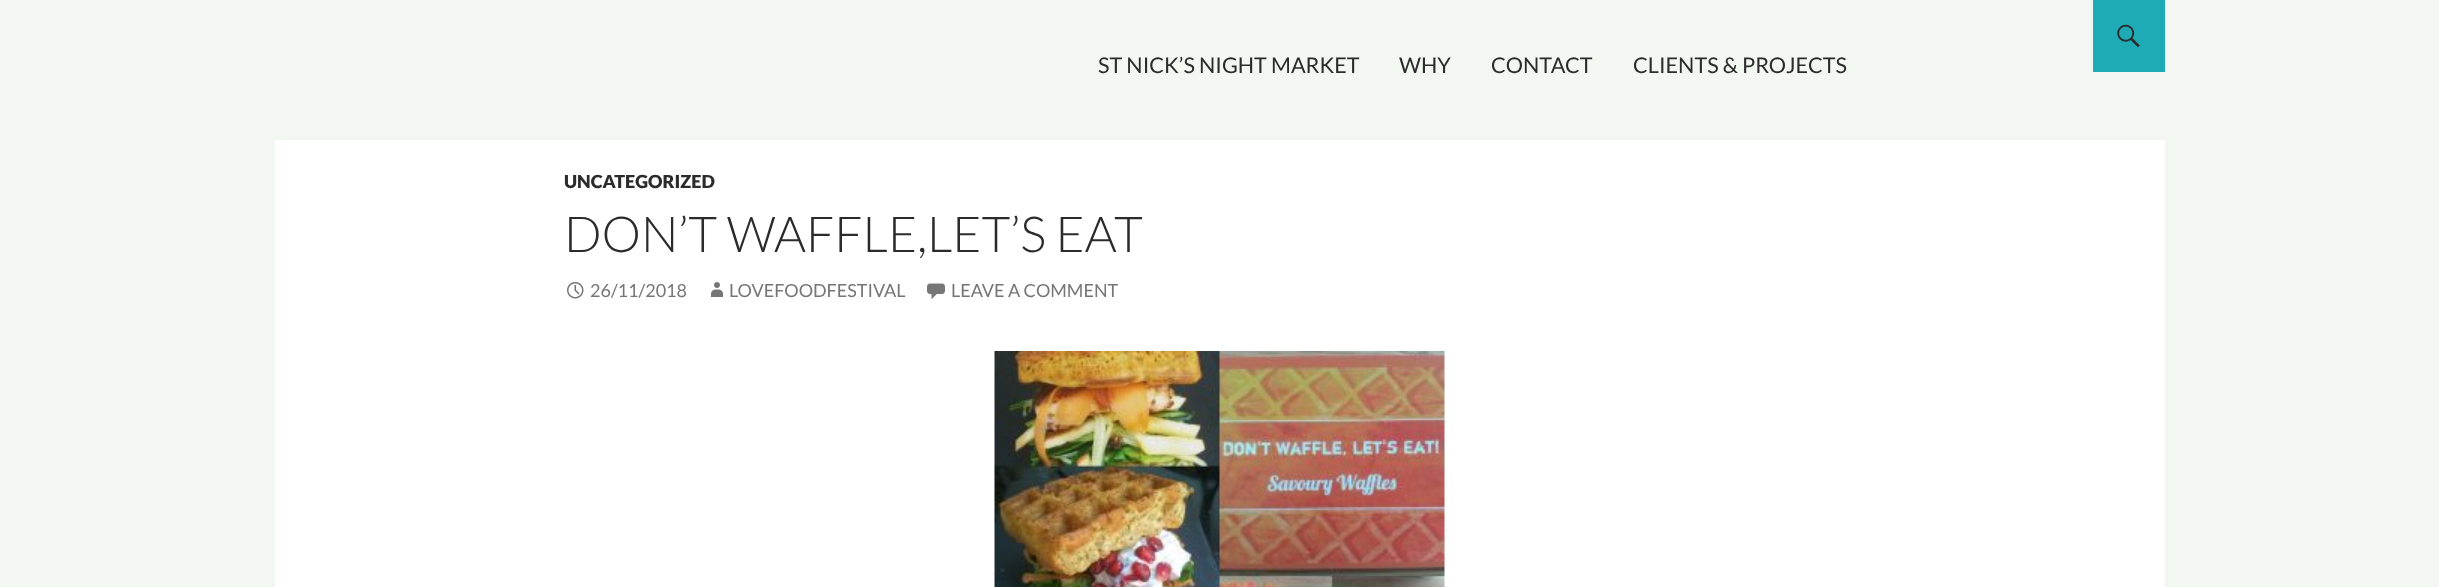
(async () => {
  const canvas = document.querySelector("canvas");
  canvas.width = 2439;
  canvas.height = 587;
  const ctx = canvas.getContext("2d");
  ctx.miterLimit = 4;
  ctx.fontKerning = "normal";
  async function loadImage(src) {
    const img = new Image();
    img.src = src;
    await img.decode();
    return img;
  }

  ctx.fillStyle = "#f2f7f2";
  ctx.fillRect(0, 0, 2439, 587);
  ctx.fillStyle = "#ffffff";
  ctx.fillRect(275, 140, 1890, 447);
  ctx.fillStyle = "#1eabb5";
  ctx.fillRect(2093, 0, 72, 72);
  ctx.drawImage(await loadImage("img/1.png"), 2117, 24, 23, 24);
  ctx.drawImage(await loadImage("img/2.png"), 567, 282, 17, 17);
  ctx.drawImage(await loadImage("img/3.png"), 711, 282, 12, 15);
  ctx.drawImage(await loadImage("img/4.png"), 927, 283, 18, 17);
  ctx.drawImage(await loadImage("img/5.png"), 994, 351, 451, 236);
  ctx.font = "21.6px Lato";
  ctx.fillStyle = "#2b2b2b";
  for (const [text, x, y] of [
    ["ST NICK’S NIGHT MARKET", 1098, 73],
    ["WHY", 1399, 73],
    ["CONTACT", 1491, 73],
    ["CLIENTS & PROJECTS", 1633, 73],
  ]) {
    ctx.fillText(text, x, y);
  }
  ctx.font = "900 18px Lato";
  ctx.fillText("UNCATEGORIZED", 564, 188);
  ctx.font = "300 49.5px Lato";
  ctx.fillText("DON’T WAFFLE,LET’S EAT", 564, 252);
  ctx.font = "18px Lato";
  ctx.fillStyle = "#767676";
  for (const [text, x, y] of [
    ["26/11/2018", 590, 297],
    ["LOVEFOODFESTIVAL", 729, 297],
    ["LEAVE A COMMENT", 951, 297],
  ]) {
    ctx.fillText(text, x, y);
  }
})();
